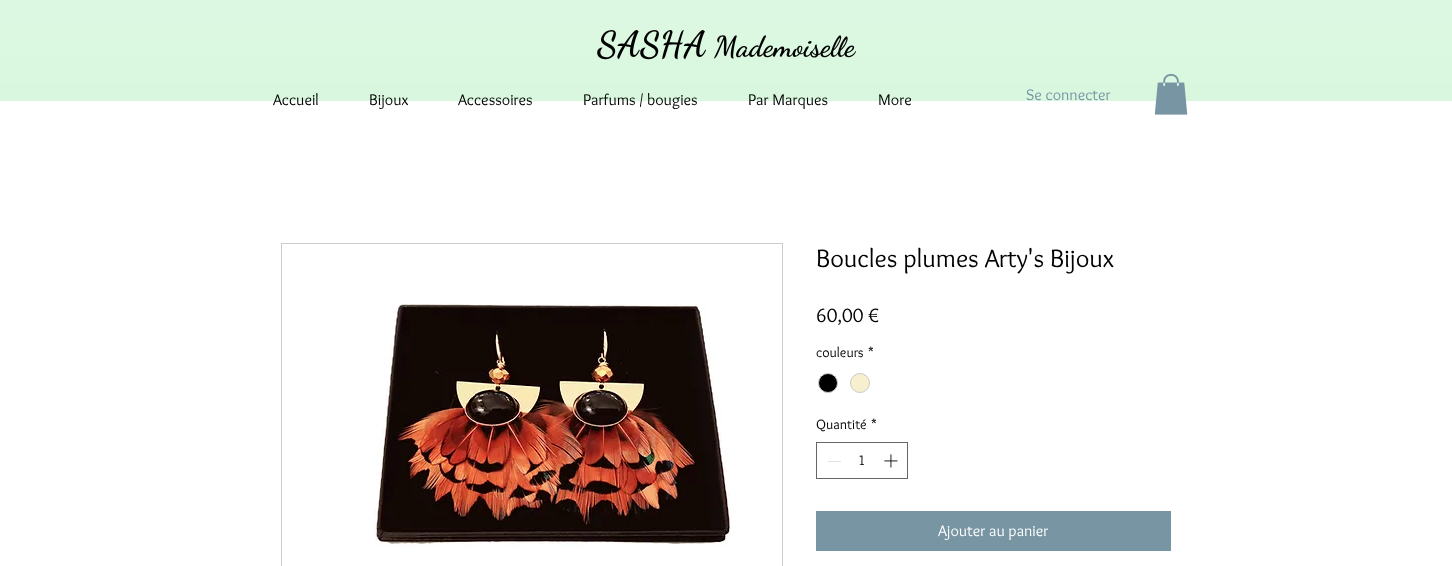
(async () => {
  const canvas = document.querySelector("canvas");
  canvas.width = 1452;
  canvas.height = 566;
  const ctx = canvas.getContext("2d");
  ctx.miterLimit = 4;
  ctx.fontKerning = "normal";
  async function loadImage(src) {
    const img = new Image();
    img.src = src;
    await img.decode();
    return img;
  }

  ctx.fillStyle = "#ffffff";
  ctx.fillRect(0, 0, 1452, 566);
  ctx.fillStyle = "#d2f6d9";
  ctx.fillRect(0, 0, 1452, 101);
  ctx.drawImage(await loadImage("img/1.png"), 0, 0, 1452, 101);
  ctx.drawImage(await loadImage("img/2.png"), 1154, 74, 34, 41);
  ctx.strokeStyle = "#cccccc";
  ctx.strokeRect(281.5, 243.5, 501, 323);
  ctx.drawImage(await loadImage("img/3.png"), 374, 302, 356, 245);
  ctx.fillStyle = "#000000";
  ctx.beginPath();
  ctx.arc(828, 383, 9.5, 0, Math.PI * 2);
  ctx.fill();
  ctx.strokeStyle = "#c9c9c9";
  ctx.stroke();
  ctx.fillStyle = "#f7f0cf";
  ctx.beginPath();
  ctx.arc(860, 383, 9.5, 0, Math.PI * 2);
  ctx.fill();
  ctx.stroke();
  ctx.strokeStyle = "#666666";
  ctx.strokeRect(816.5, 442.5, 91, 36);
  ctx.fillStyle = "#e3e3e3";
  ctx.fillRect(828, 461, 13, 1);
  ctx.drawImage(await loadImage("img/4.png"), 884, 454, 14, 14);
  ctx.fillStyle = "#7795a3";
  ctx.fillRect(816, 511, 355, 40);
  ctx.font = "bold 36px Dancing Script";
  ctx.fillStyle = "#000000";
  ctx.fillText("SASHA", 597, 56);
  ctx.font = "bold 29px Dancing Script";
  ctx.fillText("Mademoiselle", 714, 56);
  ctx.font = "16px Overlock";
  for (const [text, x, y] of [
    ["Accueil", 273, 105],
    ["Bijoux", 369, 105],
    ["Accessoires", 458, 105],
    ["Parfums / bougies", 583, 105],
    ["Par Marques", 748, 105],
    ["More", 878, 105],
  ]) {
    ctx.fillText(text, x, y);
  }
  ctx.fillStyle = "#7795a3";
  ctx.fillText("Se connecter", 1026, 100);
  ctx.font = "26px Overlock";
  ctx.fillStyle = "#000000";
  ctx.fillText("Boucles plumes Arty's Bijoux", 816, 267);
  ctx.font = "20px Overlock";
  ctx.fillText("60,00 €", 816, 322);
  ctx.font = "14px Overlock";
  for (const [text, x, y] of [
    ["couleurs", 816, 357],
    ["*", 868, 357],
    ["Quantité", 816, 429],
    ["*", 871, 429],
    ["1", 858, 465],
  ]) {
    ctx.fillText(text, x, y);
  }
  ctx.font = "16px Overlock";
  ctx.fillStyle = "#ffffff";
  ctx.fillText("Ajouter au panier", 938, 536);
})();
